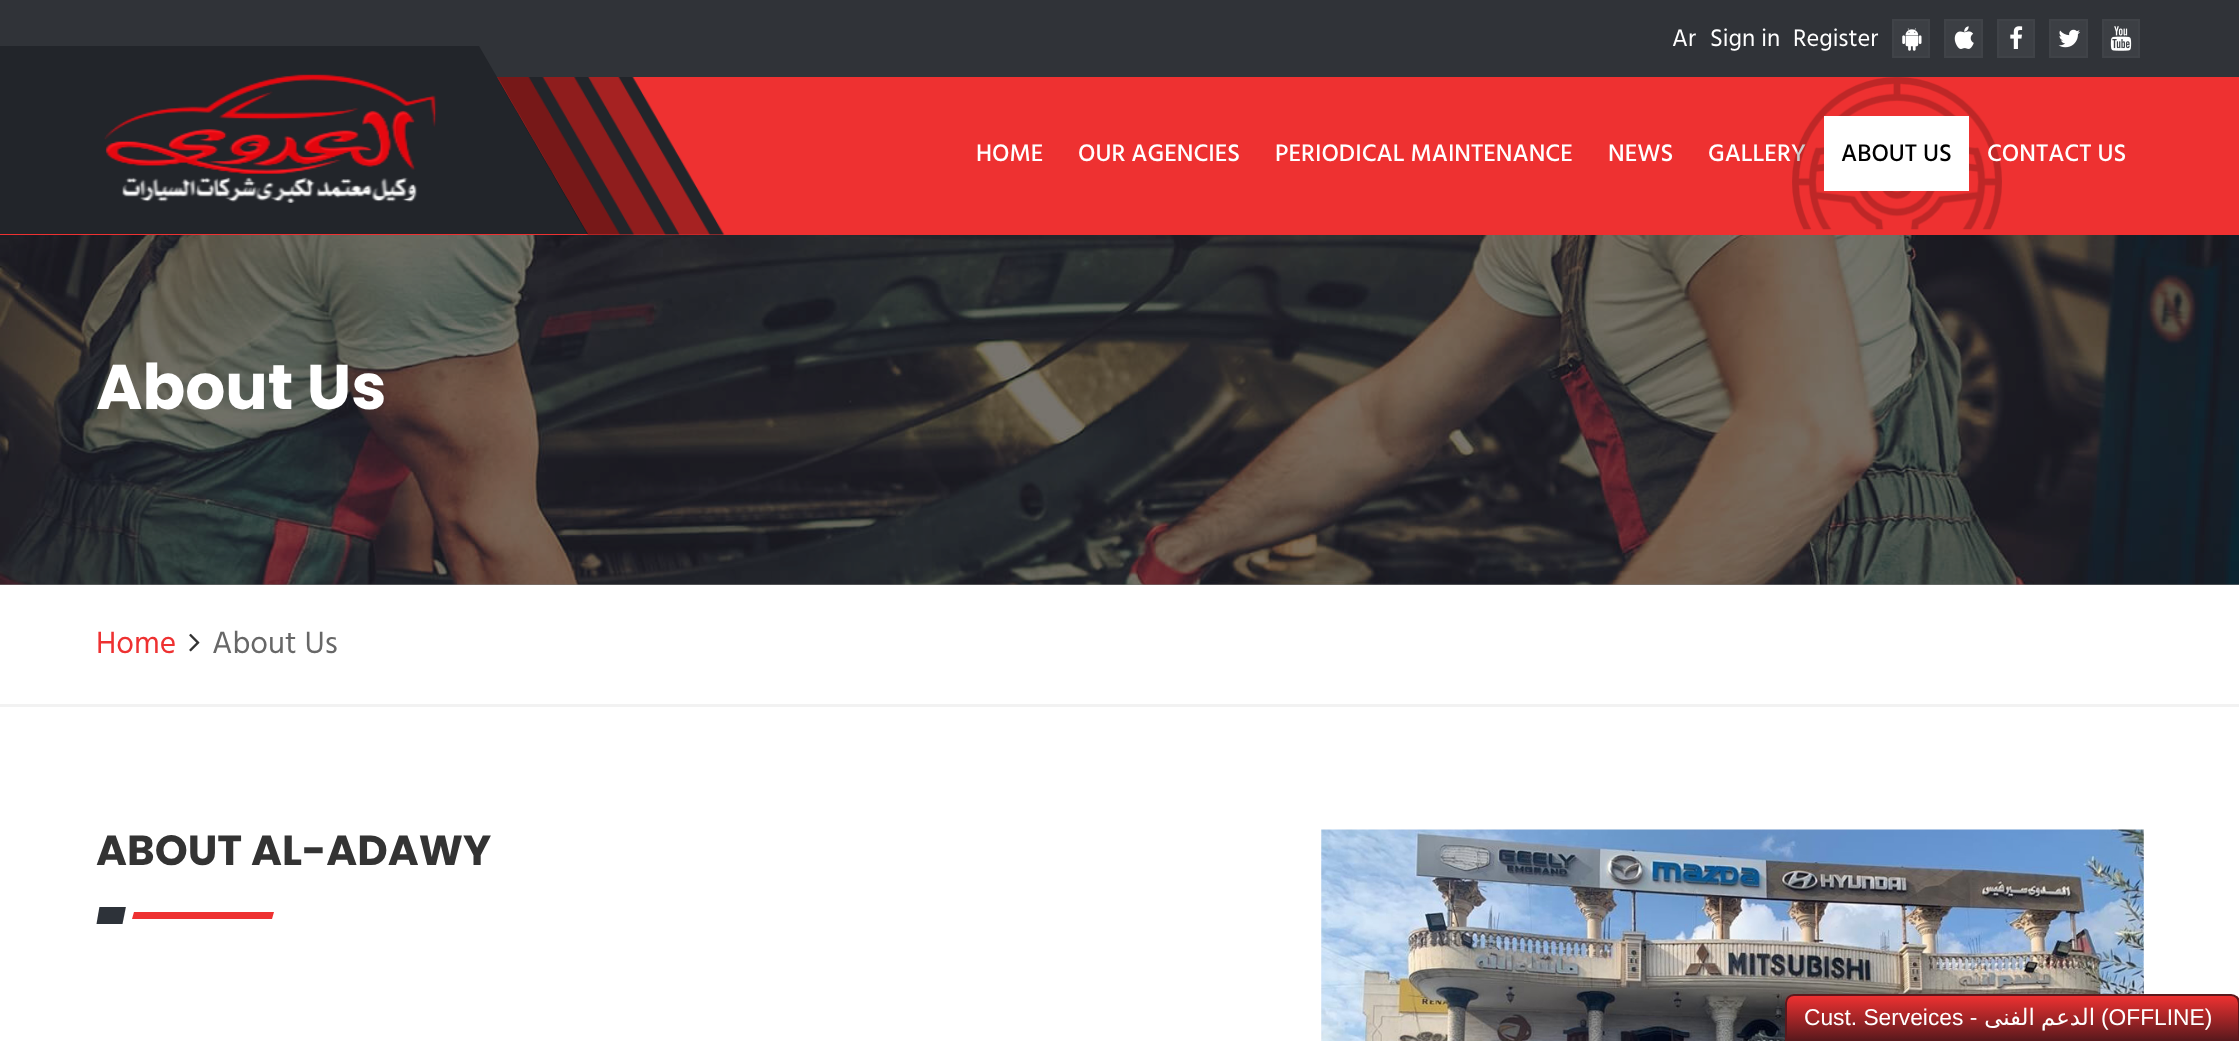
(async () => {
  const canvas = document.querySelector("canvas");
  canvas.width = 2239;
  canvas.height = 1041;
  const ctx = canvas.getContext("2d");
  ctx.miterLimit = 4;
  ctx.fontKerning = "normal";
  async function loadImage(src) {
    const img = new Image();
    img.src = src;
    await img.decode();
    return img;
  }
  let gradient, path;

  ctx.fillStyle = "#7c7c7d";
  ctx.fillRect(0, 0, 2239, 1041);
  ctx.fillStyle = "#ee3131";
  ctx.fillRect(0, 77, 2239, 158);
  ctx.fillStyle = "#303338";
  ctx.fillRect(0, 0, 2239, 77);
  ctx.fillStyle = "#3c3f44";
  ctx.beginPath();
  ctx.rect(1893, 20, 36, 37);
  ctx.fill();
  ctx.strokeStyle = "#404348";
  ctx.lineWidth = 2;
  ctx.stroke();
  ctx.drawImage(await loadImage("img/1.png"), 1902, 28, 20, 23);
  ctx.beginPath();
  ctx.rect(1945, 20, 37, 37);
  ctx.fill();
  ctx.stroke();
  ctx.drawImage(await loadImage("img/2.png"), 1954, 26, 20, 23);
  ctx.beginPath();
  ctx.rect(1998, 20, 36, 37);
  ctx.fill();
  ctx.stroke();
  ctx.drawImage(await loadImage("img/3.png"), 2010, 26, 13, 23);
  ctx.beginPath();
  ctx.rect(2050, 20, 37, 37);
  ctx.fill();
  ctx.stroke();
  ctx.drawImage(await loadImage("img/4.png"), 2058, 29, 22, 19);
  ctx.beginPath();
  ctx.rect(2103, 20, 36, 37);
  ctx.fill();
  ctx.stroke();
  ctx.drawImage(await loadImage("img/5.png"), 2110, 26, 22, 25);
  ctx.fillStyle = "#22252a";
  path = new Path2D("M-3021 46H479L588 234H-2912Z");
  ctx.fill(path);
  ctx.drawImage(await loadImage("img/6.png"), 104, 74, 333, 129);
  ctx.drawImage(await loadImage("img/7.png"), 497, 77, 228, 158);
  ctx.drawImage(await loadImage("img/9.png"), 0, 235, 2239, 350);
  ctx.fillStyle = "#ffffff";
  ctx.fillRect(0, 585, 2239, 119);
  ctx.fillStyle = "#f2f2f2";
  ctx.fillRect(0, 704, 2239, 3);
  ctx.drawImage(await loadImage("img/10.png"), 189, 633, 11, 19);
  ctx.fillStyle = "#ffffff";
  ctx.fillRect(0, 707, 2239, 334);
  ctx.save();
  ctx.beginPath();
  ctx.rect(96, 907, 1173, 49);
  ctx.clip();
  ctx.fillStyle = "#2d3239";
  path = new Path2D("M99.5 906.5H126L122.5 924H96.5Z");
  ctx.fill(path);
  ctx.restore();
  ctx.fillStyle = "#ee3131";
  path = new Path2D("M134 912H274L272 919H132Z");
  ctx.fill(path);
  ctx.drawImage(await loadImage("img/11.png"), 1321, 829, 823, 212);
  ctx.save();
  path = new Path2D("M1794 994H2231C2236 994 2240 998 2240 1003V1041H1785V1003C1785 998 1789 994 1794 994Z");
  ctx.clip(path);
  gradient = ctx.createLinearGradient(1787, 996, 1787, 1040);
  gradient.addColorStop(0, "#ee3131");
  gradient.addColorStop(1, "#5b191d");
  ctx.fillStyle = gradient;
  ctx.fillRect(1785, 996, 454, 43);
  ctx.restore();
  path = new Path2D("M1794 995H2231C2235.5 995 2239 998.5 2239 1003V1040H1786V1003C1786 998.5 1789.5 995 1794 995Z");
  ctx.strokeStyle = "#5b191d";
  ctx.stroke(path);
  ctx.font = "24.5px Hind";
  ctx.fillStyle = "#ffffff";
  for (const [text, x, y] of [
    ["Ar", 1672, 46],
    ["Sign in", 1710, 46],
    ["Register", 1793, 46],
  ]) {
    ctx.fillText(text, x, y);
  }
  ctx.font = "500 24.5px Hind";
  for (const [text, x, y] of [
    ["HOME", 976, 161],
    ["OUR AGENCIES", 1078, 161],
    ["PERIODICAL MAINTENANCE", 1275, 161],
    ["NEWS", 1608, 161],
    ["GALLERY", 1708, 161],
  ]) {
    ctx.fillText(text, x, y);
  }
  ctx.drawImage(await loadImage("img/8.png"), 1792, 77, 210, 153);
  ctx.fillRect(1824, 116, 145, 75);
  ctx.fillStyle = "#000000";
  ctx.fillText("ABOUT US", 1841, 161);
  ctx.fillStyle = "#ffffff";
  ctx.fillText("CONTACT US", 1987, 161);
  ctx.font = "bold 63px Poppins";
  ctx.fillText("About Us", 96, 409);
  ctx.font = "31.5px Hind";
  ctx.fillStyle = "#ee3131";
  ctx.fillText("Home", 96, 653);
  ctx.fillStyle = "#676767";
  ctx.fillText("About Us", 212, 653);
  ctx.font = "bold 42px Poppins";
  ctx.fillStyle = "#333333";
  ctx.fillText("ABOUT AL-ADAWY", 96, 865);
  ctx.font = "22.75px Liberation Sans";
  ctx.fillStyle = "#ffffff";
  ctx.fillText("Cust. Serveices -", 1804, 1025);
  ctx.wordSpacing = "-1px";
  ctx.direction = "rtl";
  ctx.font = "22.75px DejaVu Sans";
  ctx.fillText("الدعم الفنى", 2095, 1025);
  ctx.wordSpacing = "0px";
  ctx.direction = "ltr";
  ctx.font = "22.75px Liberation Sans";
  ctx.fillText("(OFFLINE)", 2101, 1025);
})();
